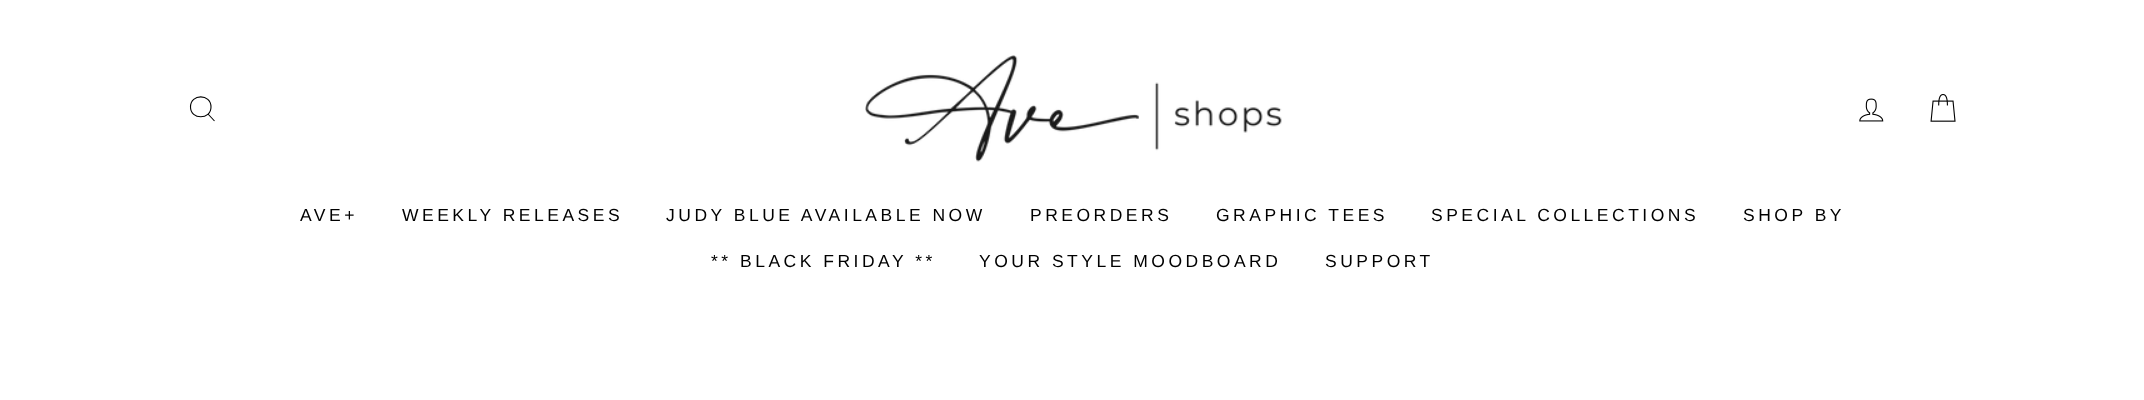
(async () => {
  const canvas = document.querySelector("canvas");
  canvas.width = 2144;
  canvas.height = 400;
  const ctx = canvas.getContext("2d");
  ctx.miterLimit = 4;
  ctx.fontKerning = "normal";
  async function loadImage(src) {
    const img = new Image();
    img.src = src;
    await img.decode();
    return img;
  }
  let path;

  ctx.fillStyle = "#ffffff";
  ctx.fillRect(0, 0, 2144, 400);
  path = new Path2D("M211 107C211 120 190.5 120 190.5 107C190.5 93.5 211 93.5 211 107ZM214.5 121L208 114");
  ctx.strokeStyle = "#000000";
  ctx.lineWidth = 1.1;
  ctx.stroke(path);
  ctx.drawImage(await loadImage("img/1.png"), 865, 55, 417, 107);
  ctx.drawImage(await loadImage("img/2.png"), 1859, 98, 25, 24);
  ctx.drawImage(await loadImage("img/3.png"), 1930, 94, 26, 28);
  ctx.letterSpacing = "3.5px";
  ctx.font = "17.5px Liberation Sans";
  ctx.fillStyle = "#000000";
  for (const [text, x, y] of [
    ["AVE+", 300, 221],
    ["WEEKLY RELEASES", 402, 221],
    ["JUDY BLUE AVAILABLE NOW", 666, 221],
    ["PREORDERS", 1030, 221],
    ["GRAPHIC TEES", 1216, 221],
    ["SPECIAL COLLECTIONS", 1431, 221],
    ["SHOP BY", 1743, 221],
    ["** BLACK FRIDAY **", 711, 267],
    ["YOUR STYLE MOODBOARD", 979, 267],
    ["SUPPORT", 1325, 267],
  ]) {
    ctx.fillText(text, x, y);
  }
})();
